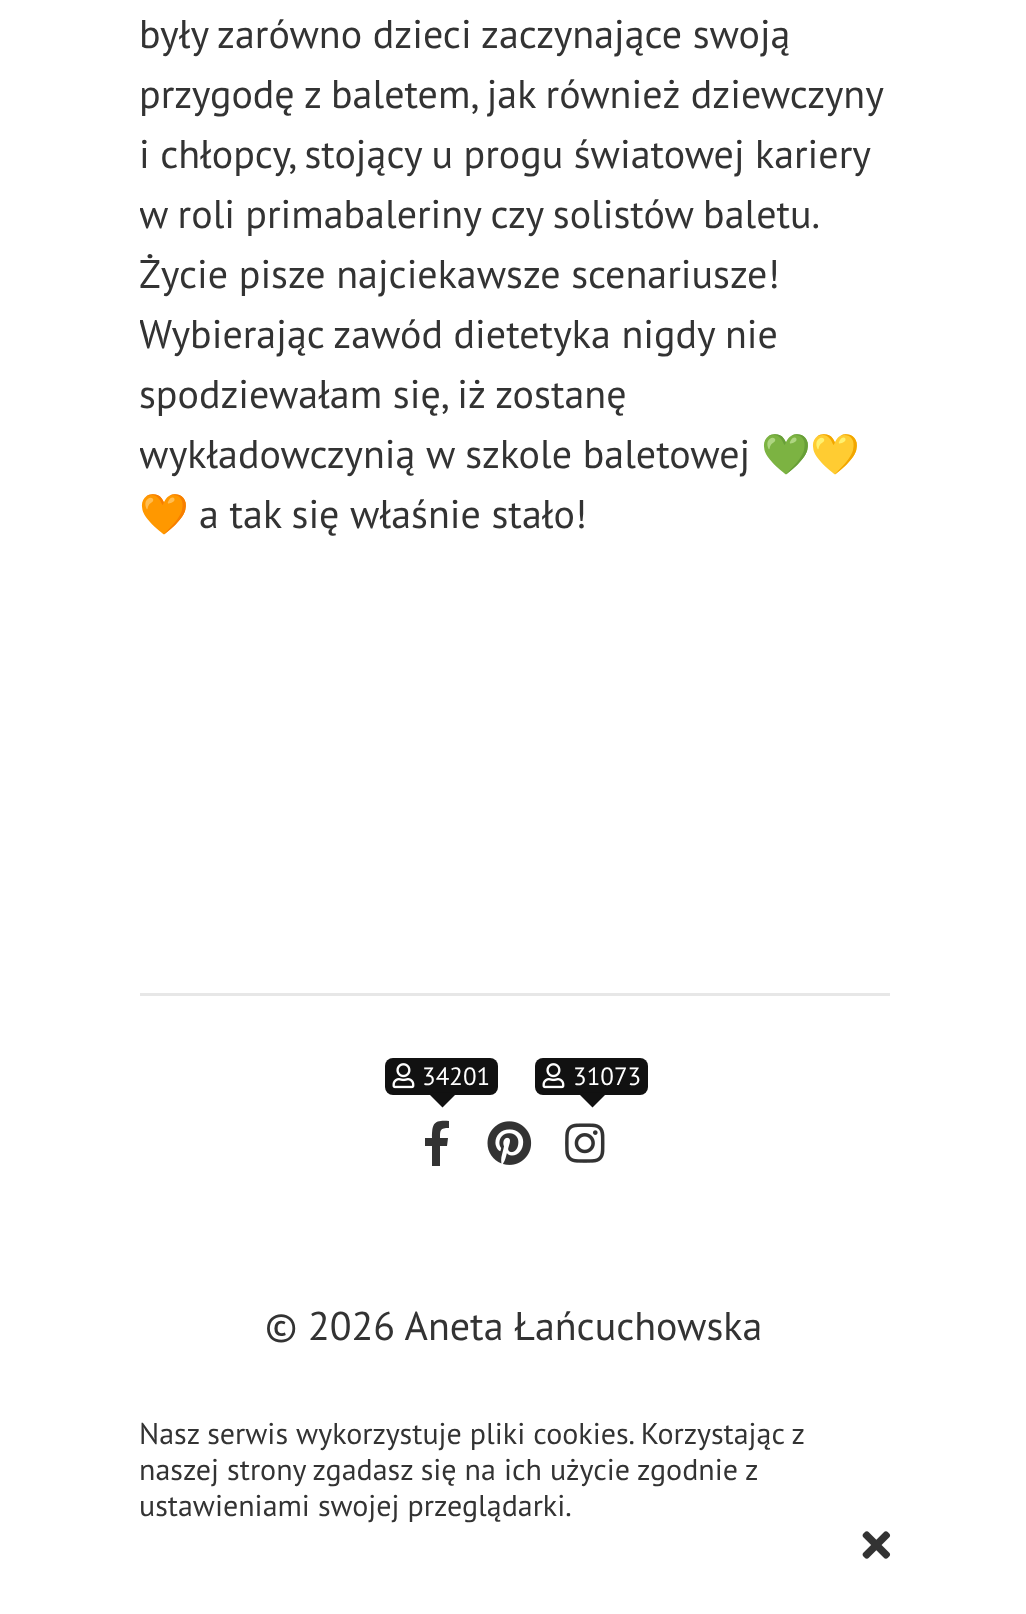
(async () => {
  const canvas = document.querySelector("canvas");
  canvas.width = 1026;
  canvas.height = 1614;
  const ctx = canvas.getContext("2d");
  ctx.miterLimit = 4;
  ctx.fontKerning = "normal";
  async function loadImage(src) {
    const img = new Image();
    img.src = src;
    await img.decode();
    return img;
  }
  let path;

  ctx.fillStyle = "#ffffff";
  ctx.fillRect(0, 0, 1026, 1614);
  ctx.fillStyle = "#e7e7e7";
  ctx.fillRect(140, 993, 750, 3);
  ctx.fillStyle = "#111111";
  ctx.beginPath();
  ctx.roundRect(385, 1058, 113, 37, 8);
  ctx.fill();
  ctx.drawImage(await loadImage("img/1.png"), 392, 1063, 23, 26);
  path = new Path2D("M427.5 1092.5H457.5L442.5 1107.5Z");
  ctx.fill(path);
  ctx.fillStyle = "#333333";
  path = new Path2D("M447 1146H440V1166H432V1146H425V1138H432C432 1123 434 1120 449 1121V1128C440 1128 440 1130 440 1138H448Z");
  ctx.fill(path);
  ctx.fillStyle = "#111111";
  ctx.beginPath();
  ctx.roundRect(535, 1058, 113, 37, 8);
  ctx.fill();
  ctx.drawImage(await loadImage("img/1.png"), 542, 1063, 23, 26);
  path = new Path2D("M577.5 1092.5H607.5L592.5 1107.5Z");
  ctx.fill(path);
  ctx.drawImage(await loadImage("img/2.png"), 565, 1123, 40, 40);
  ctx.drawImage(await loadImage("img/3.png"), 487, 1121, 45, 44);
  ctx.drawImage(await loadImage("img/4.png"), 862, 1531, 29, 28);
  ctx.font = "40px PT Sans";
  ctx.fillStyle = "#333333";
  ctx.fillText("były zarówno dzieci zaczynające swoją", 139, 48);
  ctx.wordSpacing = "-0.25px";
  ctx.fillText("przygodę z baletem, jak również dziewczyny", 139, 108);
  ctx.fillText("i chłopcy, stojący u progu światowej kariery", 139, 168);
  ctx.save();
  ctx.beginPath();
  ctx.rect(140, 0, 750, 630);
  ctx.clip();
  ctx.wordSpacing = "-0.5px";
  ctx.fillText("w roli primabaleriny czy solistów baletu.", 139, 228);
  ctx.restore();
  ctx.wordSpacing = "0px";
  ctx.fillText("Życie pisze najciekawsze scenariusze!", 139, 288);
  ctx.save();
  ctx.beginPath();
  ctx.rect(140, 0, 750, 630);
  ctx.clip();
  ctx.fillText("Wybierając zawód dietetyka nigdy nie", 139, 348);
  ctx.restore();
  ctx.fillText("spodziewałam się, iż zostanę", 139, 408);
  ctx.save();
  ctx.beginPath();
  ctx.rect(140, 0, 750, 630);
  ctx.clip();
  ctx.fillText("wykładowczynią w szkole baletowej", 139, 468);
  ctx.restore();
  ctx.font = "40px Noto Color Emoji";
  ctx.fillText("💚💛", 761, 468);
  ctx.save();
  ctx.beginPath();
  ctx.rect(140, 0, 750, 630);
  ctx.clip();
  ctx.fillText("🧡", 139, 528);
  ctx.restore();
  ctx.font = "40px PT Sans";
  ctx.fillText("a tak się właśnie stało!", 199, 528);
  ctx.font = "25px PT Sans";
  ctx.fillStyle = "#ffffff";
  ctx.fillText("34201", 422, 1085);
  ctx.fillText("31073", 573, 1085);
  ctx.font = "40px PT Sans";
  ctx.fillStyle = "#333333";
  ctx.fillText("© 2026 Aneta Łańcuchowska", 265, 1340);
  ctx.font = "30px PT Sans";
  for (const [text, x, y] of [
    ["Nasz serwis wykorzystuje pliki cookies. Korzystając z", 139, 1444],
    ["naszej strony zgadasz się na ich użycie zgodnie z", 139, 1480],
    ["ustawieniami swojej przeglądarki.", 139, 1516],
  ]) {
    ctx.fillText(text, x, y);
  }
})();
